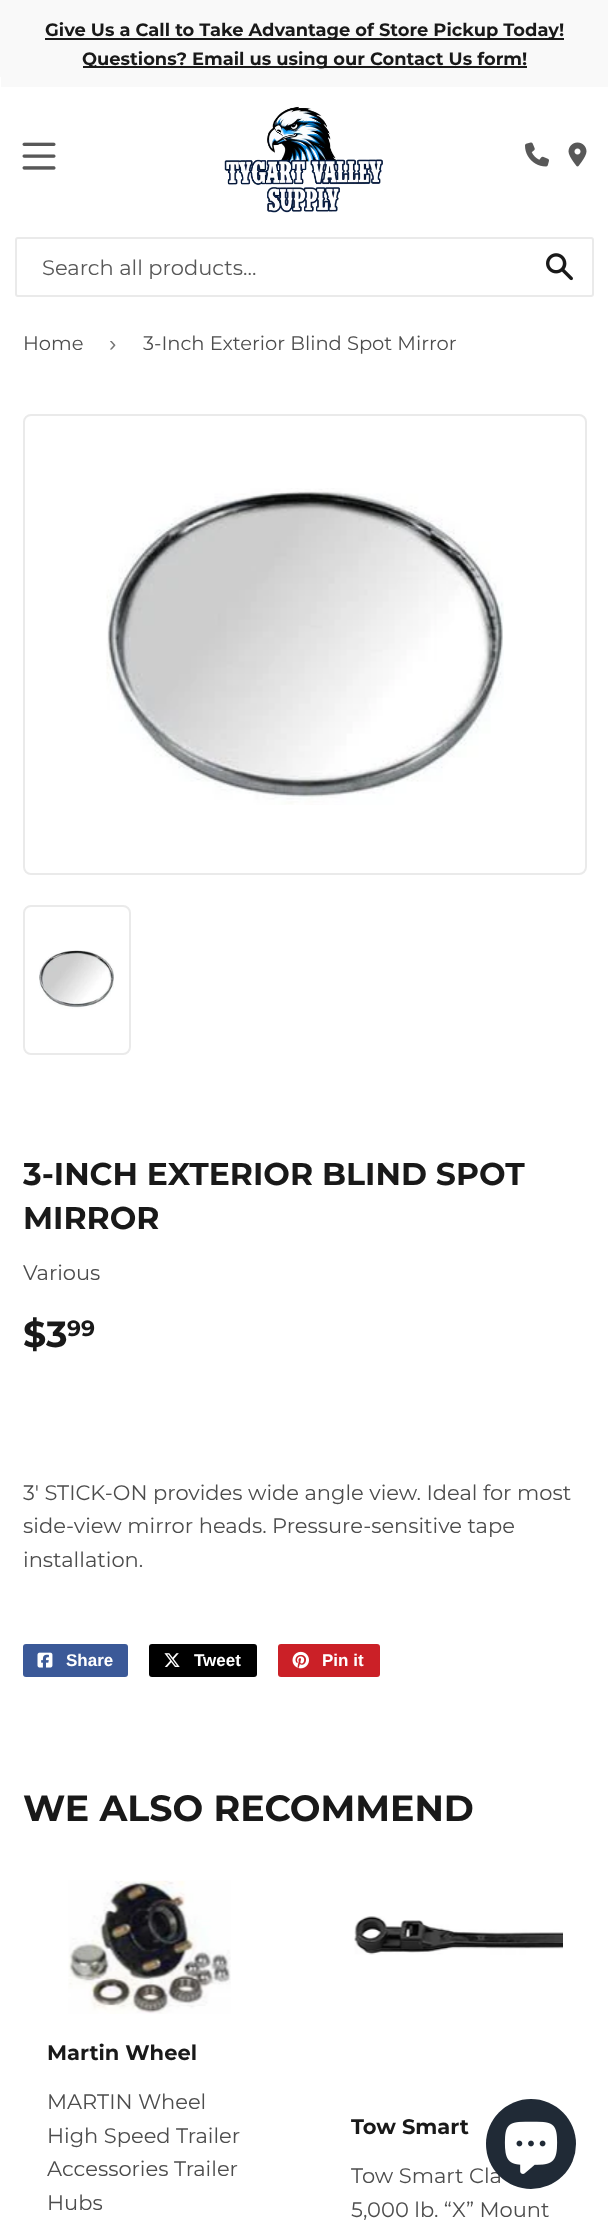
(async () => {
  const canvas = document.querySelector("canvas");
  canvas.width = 608;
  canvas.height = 2220;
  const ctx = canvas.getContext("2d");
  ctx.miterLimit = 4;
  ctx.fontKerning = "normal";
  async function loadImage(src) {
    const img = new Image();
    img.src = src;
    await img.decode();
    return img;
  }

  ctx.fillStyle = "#ffffff";
  ctx.fillRect(0, 0, 608, 2220);
  for (const [x, y, w, h, color] of [
    [0, 0, 608, 87, "#f9f9f9"],
    [45, 38, 519, 2, "#1b1b1b"],
    [83, 66, 444, 2, "#1b1b1b"],
    [0, 77, 1, 10, "#ffffff"],
  ]) {
    ctx.fillStyle = color;
    ctx.fillRect(x, y, w, h);
  }
  ctx.drawImage(await loadImage("img/1.png"), 22, 142, 34, 28);
  ctx.drawImage(await loadImage("img/2.png"), 224, 105, 159, 108);
  ctx.drawImage(await loadImage("img/3.png"), 525, 142, 24, 25);
  ctx.drawImage(await loadImage("img/4.png"), 568, 142, 19, 25);
  ctx.beginPath();
  ctx.roundRect(16, 238, 577, 58, 2);
  ctx.strokeStyle = "#eaeaea";
  ctx.lineWidth = 2;
  ctx.stroke();
  ctx.drawImage(await loadImage("img/5.png"), 546, 253, 27, 28);
  ctx.beginPath();
  ctx.roundRect(24, 415, 562, 459, 7);
  ctx.stroke();
  ctx.drawImage(await loadImage("img/6.png"), 106, 488, 398, 317);
  ctx.beginPath();
  ctx.roundRect(24, 906, 106, 148, 7);
  ctx.stroke();
  ctx.drawImage(await loadImage("img/7.png"), 39, 950, 75, 59);
  ctx.fillStyle = "#3b5998";
  ctx.beginPath();
  ctx.roundRect(23, 1644, 105, 33, 3);
  ctx.fill();
  ctx.drawImage(await loadImage("img/8.png"), 37, 1652, 16, 16);
  ctx.fillStyle = "#000000";
  ctx.beginPath();
  ctx.roundRect(149, 1644, 108, 33, 3);
  ctx.fill();
  ctx.drawImage(await loadImage("img/9.png"), 164, 1653, 16, 14);
  ctx.fillStyle = "#cb2027";
  ctx.beginPath();
  ctx.roundRect(278, 1644, 102, 33, 3);
  ctx.fill();
  ctx.drawImage(await loadImage("img/10.png"), 292, 1651, 17, 18);
  ctx.drawImage(await loadImage("img/11.png"), 68, 1880, 163, 134);
  ctx.drawImage(await loadImage("img/12.png"), 354, 1916, 209, 39);
  ctx.font = "bold 17.85px Montserrat";
  ctx.fillStyle = "#191919";
  ctx.fillText("Give Us a Call to Take Advantage of Store Pickup Today!", 45, 36);
  ctx.fillText("Questions? Email us using our Contact Us form!", 82, 65);
  ctx.font = "21px Montserrat";
  ctx.fillStyle = "#585858";
  ctx.fillText("Search all products...", 42, 275);
  ctx.font = "19.5px Montserrat";
  ctx.fillStyle = "#4d4d4d";
  ctx.fillText("Home", 23, 350);
  ctx.font = "22px Liberation Sans";
  ctx.fillStyle = "#767676";
  ctx.fillText("›", 109, 351);
  ctx.font = "19.5px Montserrat";
  ctx.fillStyle = "#4d4d4d";
  ctx.fillText("3-Inch Exterior Blind Spot Mirror", 143, 350);
  ctx.font = "bold 31.5px Montserrat";
  ctx.fillStyle = "#191919";
  ctx.fillText("3-INCH EXTERIOR BLIND SPOT", 23, 1185);
  ctx.fillText("MIRROR", 23, 1229);
  ctx.font = "21px Montserrat";
  ctx.fillStyle = "#4d4d4d";
  ctx.fillText("Various", 23, 1280);
  ctx.font = "bold 36.4px Montserrat";
  ctx.fillStyle = "#191919";
  ctx.fillText("$3", 23, 1347);
  ctx.font = "bold 22px Montserrat";
  ctx.fillText("99", 67, 1336);
  ctx.font = "21px Montserrat";
  ctx.fillStyle = "#4d4d4d";
  for (const [text, x, y] of [
    ["3' STICK-ON provides wide angle view. Ideal for most", 23, 1500],
    ["side-view mirror heads. Pressure-sensitive tape", 23, 1533],
    ["installation.", 23, 1567],
  ]) {
    ctx.fillText(text, x, y);
  }
  ctx.font = "bold 17px Liberation Sans";
  ctx.fillStyle = "#ffffff";
  for (const [text, x, y] of [
    ["Share", 66, 1666],
    ["Tweet", 194, 1666],
    ["Pin it", 322, 1666],
  ]) {
    ctx.fillText(text, x, y);
  }
  ctx.font = "bold 36.4px Montserrat";
  ctx.fillStyle = "#191919";
  ctx.fillText("WE ALSO RECOMMEND", 23, 1821);
  ctx.font = "bold 21px Montserrat";
  ctx.fillText("Martin Wheel", 47, 2060);
  ctx.font = "21px Montserrat";
  ctx.fillStyle = "#4d4d4d";
  for (const [text, x, y] of [
    ["MARTIN Wheel", 47, 2109],
    ["High Speed Trailer", 47, 2143],
    ["Accessories Trailer", 47, 2176],
    ["Hubs", 47, 2210],
  ]) {
    ctx.fillText(text, x, y);
  }
  ctx.font = "bold 21px Montserrat";
  ctx.fillStyle = "#191919";
  ctx.fillText("Tow Smart", 351, 2134);
  ctx.font = "21px Montserrat";
  ctx.fillStyle = "#4d4d4d";
  ctx.fillText("Tow Smart Cla", 351, 2183);
  ctx.fillText("5,000 lb. “X” Mount", 351, 2217);
  ctx.fillStyle = "#202a36";
  ctx.beginPath();
  ctx.arc(531, 2144, 45, 0, Math.PI * 2);
  ctx.fill();
  ctx.drawImage(await loadImage("img/13.png"), 504, 2121, 54, 53);
})();
